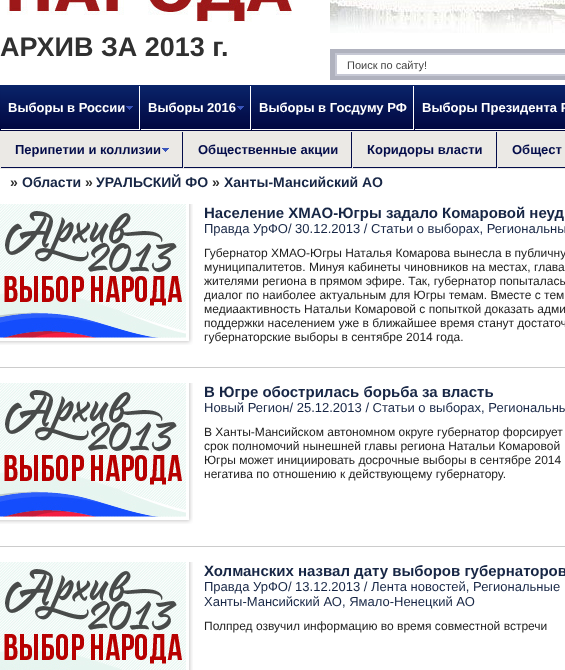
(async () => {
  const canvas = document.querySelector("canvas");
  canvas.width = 565;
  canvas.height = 670;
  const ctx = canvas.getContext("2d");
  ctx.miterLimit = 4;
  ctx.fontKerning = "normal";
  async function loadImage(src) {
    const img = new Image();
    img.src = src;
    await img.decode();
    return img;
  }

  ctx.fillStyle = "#ffffff";
  ctx.fillRect(0, 0, 565, 670);
  ctx.drawImage(await loadImage("img/1.png"), 330, 0, 235, 33);
  ctx.drawImage(await loadImage("img/2.png"), 7, 0, 285, 22);
  ctx.fillStyle = "#b0b2be";
  ctx.fillRect(330, 49, 235, 31);
  ctx.fillStyle = "#ffffff";
  ctx.beginPath();
  ctx.rect(336, 54, 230, 21);
  ctx.fill();
  ctx.strokeStyle = "#c6c8d4";
  ctx.lineWidth = 2;
  ctx.stroke();
  ctx.drawImage(await loadImage("img/3.png"), 0, 85, 565, 46);
  ctx.drawImage(await loadImage("img/4.png"), 1, 86, 138, 43);
  ctx.fillRect(139, 86, 1, 44);
  ctx.fillRect(1, 129, 139, 1);
  ctx.drawImage(await loadImage("img/5.png"), 126, 106, 7, 4);
  ctx.drawImage(await loadImage("img/6.png"), 141, 86, 109, 43);
  ctx.fillRect(250, 86, 1, 44);
  ctx.fillRect(141, 129, 110, 1);
  ctx.drawImage(await loadImage("img/5.png"), 237, 106, 7, 4);
  ctx.drawImage(await loadImage("img/7.png"), 252, 86, 161, 43);
  ctx.fillRect(413, 86, 1, 44);
  ctx.fillRect(252, 129, 162, 1);
  ctx.drawImage(await loadImage("img/8.png"), 415, 86, 150, 43);
  for (const [x, y, w, h, color] of [
    [415, 129, 150, 1, "#ffffff"],
    [0, 131, 565, 38, "#ebe9e5"],
    [182, 132, 1, 36, "#040d4a"],
    [1, 167, 182, 1, "#040d4a"],
  ]) {
    ctx.fillStyle = color;
    ctx.fillRect(x, y, w, h);
  }
  ctx.drawImage(await loadImage("img/9.png"), 162, 148, 7, 4);
  for (const [x, y, w, h, color] of [
    [351, 132, 1, 36, "#040d4a"],
    [184, 167, 168, 1, "#040d4a"],
    [496, 132, 1, 36, "#040d4a"],
    [353, 167, 144, 1, "#040d4a"],
    [498, 167, 67, 1, "#040d4a"],
  ]) {
    ctx.fillStyle = color;
    ctx.fillRect(x, y, w, h);
  }
  ctx.drawImage(await loadImage("img/10.png"), 0, 204, 193, 141);
  ctx.fillStyle = "#cccccc";
  ctx.fillRect(0, 367, 565, 1);
  ctx.drawImage(await loadImage("img/10.png"), 0, 383, 193, 141);
  ctx.fillRect(0, 546, 565, 1);
  ctx.drawImage(await loadImage("img/11.png"), 0, 562, 193, 108);
  ctx.font = "bold 27px Liberation Sans";
  ctx.fillStyle = "#303030";
  ctx.fillText("АРХИВ ЗА 2013 г.", 0, 56);
  ctx.font = "11px Liberation Sans";
  ctx.fillStyle = "#444444";
  ctx.fillText("Поиск по сайту!", 347, 69);
  ctx.font = "bold 13px Liberation Sans";
  ctx.fillStyle = "#ffffff";
  for (const [text, x, y] of [
    ["Выборы в России", 8, 112],
    ["Выборы 2016", 148, 112],
    ["Выборы в Госдуму РФ", 259, 112],
    ["Выборы Президента Р", 422, 112],
  ]) {
    ctx.fillText(text, x, y);
  }
  ctx.fillStyle = "#040d4a";
  for (const [text, x, y] of [
    ["Перипетии и коллизии", 15, 154],
    ["Общественные акции", 198, 154],
    ["Коридоры власти", 367, 154],
    ["Общест", 512, 154],
  ]) {
    ctx.fillText(text, x, y);
  }
  ctx.font = "bold 14px Liberation Sans";
  ctx.fillStyle = "#303030";
  ctx.fillText("»", 10, 187);
  ctx.fillStyle = "#172645";
  ctx.fillText("Области", 22, 187);
  ctx.fillStyle = "#303030";
  ctx.fillText("»", 85, 187);
  ctx.fillStyle = "#172645";
  ctx.fillText("УРАЛЬСКИЙ ФО", 96, 187);
  ctx.fillStyle = "#303030";
  ctx.fillText("»", 212, 187);
  ctx.fillStyle = "#172645";
  ctx.fillText("Ханты-Мансийский АО", 224, 187);
  ctx.font = "bold 15px Liberation Sans";
  ctx.fillText("Население ХМАО-Югры задало Комаровой неуд", 204, 218);
  ctx.font = "13px Liberation Sans";
  ctx.fillText("Правда УрФО/ 30.12.2013 / Статьи о выборах, Региональны", 204, 233);
  ctx.font = "12px Liberation Sans";
  ctx.fillStyle = "#222222";
  for (const [text, x, y] of [
    ["Губернатор ХМАО-Югры Наталья Комарова вынесла в публичну", 204, 257],
    ["муниципалитетов. Минуя кабинеты чиновников на местах, глава", 204, 271],
    ["жителями региона в прямом эфире. Так, губернатор попыталась", 204, 285],
    ["диалог по наиболее актуальным для Югры темам. Вместе с тем", 204, 299],
    ["медиаактивность Натальи Комаровой с попыткой доказать адми", 204, 313],
    ["поддержки населением уже в ближайшее время станут достаточ", 204, 327],
    ["губернаторские выборы в сентябре 2014 года.", 204, 341],
  ]) {
    ctx.fillText(text, x, y);
  }
  ctx.font = "bold 15px Liberation Sans";
  ctx.fillStyle = "#172645";
  ctx.fillText("В Югре обострилась борьба за власть", 204, 397);
  ctx.font = "13px Liberation Sans";
  ctx.fillText("Новый Регион/ 25.12.2013 / Статьи о выборах, Региональны", 204, 412);
  ctx.font = "12px Liberation Sans";
  ctx.fillStyle = "#222222";
  for (const [text, x, y] of [
    ["В Ханты-Мансийском автономном округе губернатор форсирует", 204, 436],
    ["срок полномочий нынешней главы региона Натальи Комаровой", 204, 450],
    ["Югры может инициировать досрочные выборы в сентябре 2014", 204, 464],
    ["негатива по отношению к действующему губернатору.", 204, 478],
  ]) {
    ctx.fillText(text, x, y);
  }
  ctx.font = "bold 15px Liberation Sans";
  ctx.fillStyle = "#172645";
  ctx.fillText("Холманских назвал дату выборов губернаторов", 204, 576);
  ctx.font = "13px Liberation Sans";
  ctx.fillText("Правда УрФО/ 13.12.2013 / Лента новостей, Региональные", 204, 591);
  ctx.fillText("Ханты-Мансийский АО, Ямало-Ненецкий АО", 204, 606);
  ctx.font = "12px Liberation Sans";
  ctx.fillStyle = "#222222";
  ctx.fillText("Полпред озвучил информацию во время совместной встречи", 204, 630);
})();
